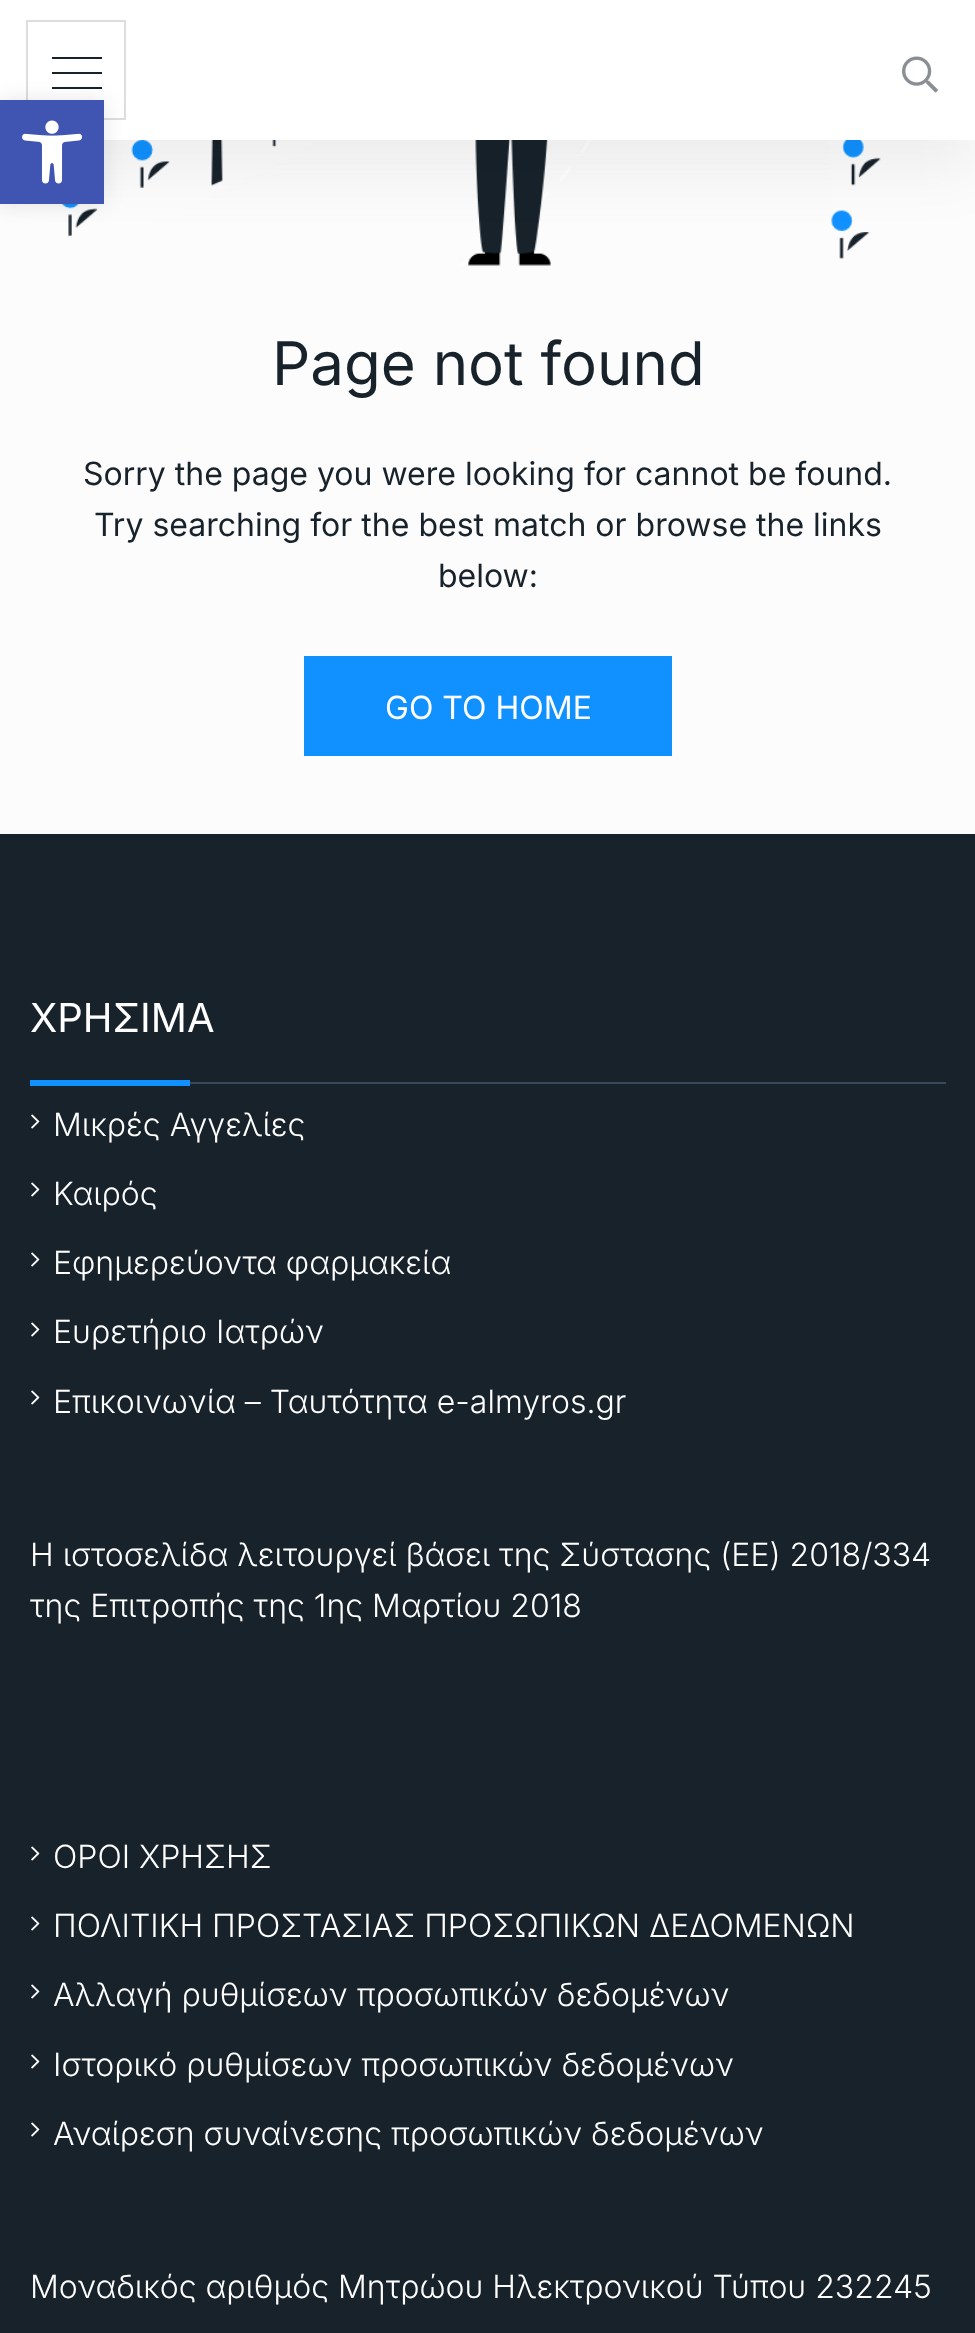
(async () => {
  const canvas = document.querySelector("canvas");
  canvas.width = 975;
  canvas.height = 2333;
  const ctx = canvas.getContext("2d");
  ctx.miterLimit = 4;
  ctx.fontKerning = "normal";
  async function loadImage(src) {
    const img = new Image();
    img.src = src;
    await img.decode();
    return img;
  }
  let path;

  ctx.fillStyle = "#fcfcfc";
  ctx.fillRect(0, 0, 975, 2333);
  ctx.drawImage(await loadImage("img/3.png"), 62, 140, 819, 126);
  ctx.fillStyle = "rgba(0, 0, 0, 0.06)";
  ctx.filter = "blur(30px)";
  ctx.beginPath();
  ctx.rect(0, 30, 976, 140);
  ctx.fill();
  ctx.filter = "none";
  ctx.fillStyle = "#ffffff";
  ctx.fillRect(0, 0, 975, 140);
  ctx.strokeStyle = "#dddddd";
  ctx.lineWidth = 2;
  ctx.strokeRect(27, 21, 98, 98);
  ctx.fillStyle = "#17222b";
  path = new Path2D("M52 57V59H102V57ZM52 72V74H102V72ZM52 87V89H102V87Z");
  ctx.fill(path);
  ctx.drawImage(await loadImage("img/1.png"), 902, 56, 36, 37);
  ctx.fillStyle = "rgba(0, 0, 0, 0.1)";
  ctx.filter = "blur(10px)";
  ctx.beginPath();
  ctx.rect(0, 100, 104, 104);
  ctx.fill();
  ctx.filter = "none";
  ctx.fillStyle = "#4054b2";
  ctx.fillRect(0, 100, 104, 104);
  ctx.drawImage(await loadImage("img/2.png"), 22, 120, 61, 64);
  for (const [x, y, w, h, color] of [
    [304, 656, 368, 100, "#1091ff"],
    [0, 834, 975, 1499, "#17222b"],
    [190, 1082, 756, 2, "#3a4957"],
    [30, 1080, 160, 6, "#1091ff"],
  ]) {
    ctx.fillStyle = color;
    ctx.fillRect(x, y, w, h);
  }
  ctx.drawImage(await loadImage("img/4.png"), 31, 1114, 9, 15);
  ctx.drawImage(await loadImage("img/4.png"), 31, 1182, 9, 15);
  ctx.drawImage(await loadImage("img/4.png"), 31, 1252, 9, 15);
  ctx.drawImage(await loadImage("img/4.png"), 31, 1322, 9, 15);
  ctx.drawImage(await loadImage("img/4.png"), 31, 1390, 9, 15);
  ctx.drawImage(await loadImage("img/4.png"), 31, 1846, 9, 15);
  ctx.drawImage(await loadImage("img/4.png"), 31, 1916, 9, 15);
  ctx.drawImage(await loadImage("img/4.png"), 31, 1984, 9, 15);
  ctx.drawImage(await loadImage("img/4.png"), 31, 2054, 9, 15);
  ctx.drawImage(await loadImage("img/4.png"), 31, 2122, 9, 15);
  ctx.font = "60px Inter";
  ctx.fillStyle = "#17222b";
  ctx.fillText("Page not found", 272, 385);
  ctx.font = "32px Inter";
  for (const [text, x, y] of [
    ["Sorry the page you were looking for cannot be found.", 83, 485],
    ["Try searching for the best match or browse the links", 94, 536],
    ["below:", 438, 587],
  ]) {
    ctx.fillText(text, x, y);
  }
  ctx.fillStyle = "#ffffff";
  ctx.fillText("GO TO HOME", 385, 719);
  ctx.font = "40px Inter";
  ctx.fillText("ΧΡΗΣΙΜΑ", 30, 1032);
  ctx.font = "300 32px Inter";
  for (const [text, x, y] of [
    ["Μικρές Αγγελίες", 53, 1136],
    ["Καιρός", 53, 1205],
    ["Εφημερεύοντα φαρμακεία", 53, 1274],
    ["Ευρετήριο Ιατρών", 53, 1343],
    ["Επικοινωνία – Ταυτότητα e-almyros.gr", 53, 1413],
    ["Η ιστοσελίδα λειτουργεί βάσει της Σύστασης (ΕΕ) 2018/334", 30, 1566],
    ["της Επιτροπής της 1ης Μαρτίου 2018", 30, 1617],
    ["ΟΡΟΙ ΧΡΗΣΗΣ", 53, 1868],
    ["ΠΟΛΙΤΙΚΗ ΠΡΟΣΤΑΣΙΑΣ ΠΡΟΣΩΠΙΚΩΝ ΔΕΔΟΜΕΝΩΝ", 53, 1937],
    ["Αλλαγή ρυθμίσεων προσωπικών δεδομένων", 53, 2006],
    ["Ιστορικό ρυθμίσεων προσωπικών δεδομένων", 53, 2076],
    ["Αναίρεση συναίνεσης προσωπικών δεδομένων", 53, 2145],
    ["Μοναδικός αριθμός Μητρώου Ηλεκτρονικού Τύπου 232245", 30, 2298],
  ]) {
    ctx.fillText(text, x, y);
  }
})();
